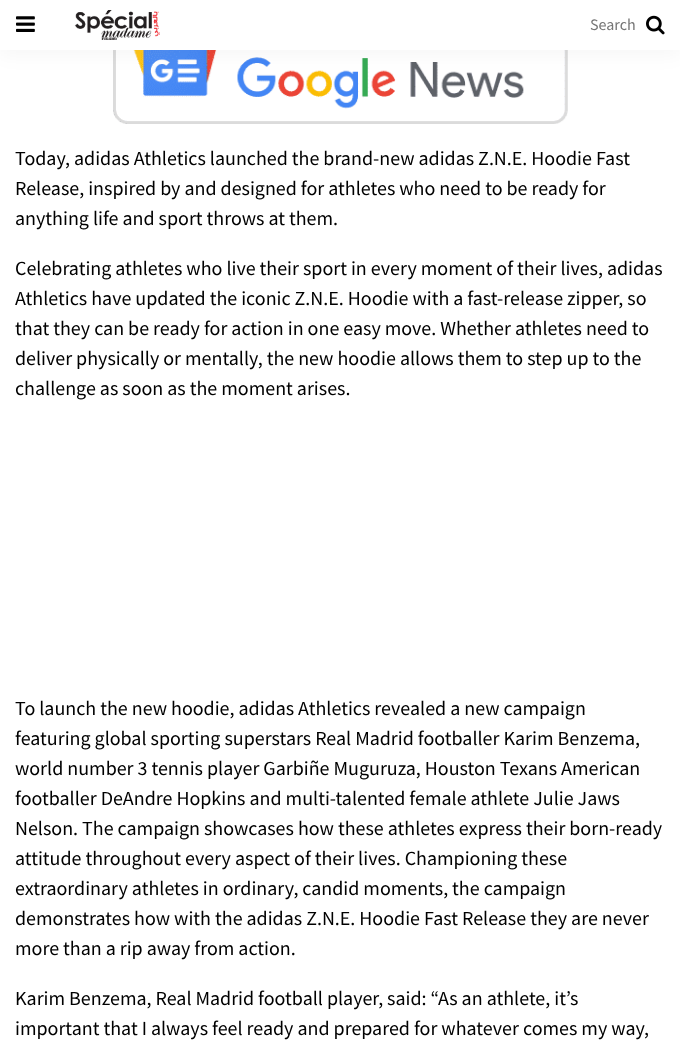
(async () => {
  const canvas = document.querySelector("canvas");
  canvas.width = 680;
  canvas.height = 1048;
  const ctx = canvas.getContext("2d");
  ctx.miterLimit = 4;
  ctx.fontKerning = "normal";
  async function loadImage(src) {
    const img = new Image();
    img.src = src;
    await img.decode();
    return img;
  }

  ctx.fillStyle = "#ffffff";
  ctx.fillRect(0, 0, 680, 1048);
  ctx.drawImage(await loadImage("img/4.png"), 113, 50, 455, 74);
  ctx.fillStyle = "rgba(0, 0, 0, 0.04)";
  ctx.filter = "blur(10px)";
  ctx.beginPath();
  ctx.rect(0, 4, 680, 50);
  ctx.fill();
  ctx.filter = "none";
  ctx.fillStyle = "#ffffff";
  ctx.fillRect(0, 0, 680, 50);
  ctx.drawImage(await loadImage("img/1.png"), 16, 16, 19, 16);
  ctx.drawImage(await loadImage("img/2.png"), 74, 10, 86, 30);
  ctx.drawImage(await loadImage("img/3.png"), 646, 15, 19, 20);
  ctx.font = "16px Source Sans Pro";
  ctx.fillStyle = "#757575";
  ctx.fillText("Search", 590, 30);
  ctx.font = "20px Source Sans Pro";
  ctx.fillStyle = "#000000";
  for (const [text, x, y] of [
    ["Today, adidas Athletics launched the brand-new adidas Z.N.E. Hoodie Fast", 15, 165],
    ["Release, inspired by and designed for athletes who need to be ready for", 15, 195],
    ["anything life and sport throws at them.", 15, 225],
    ["Celebrating athletes who live their sport in every moment of their lives, adidas", 15, 275],
    ["Athletics have updated the iconic Z.N.E. Hoodie with a fast-release zipper, so", 15, 305],
    ["that they can be ready for action in one easy move. Whether athletes need to", 15, 335],
    ["deliver physically or mentally, the new hoodie allows them to step up to the", 15, 365],
    ["challenge as soon as the moment arises.", 15, 395],
    ["To launch the new hoodie, adidas Athletics revealed a new campaign", 15, 715],
    ["featuring global sporting superstars Real Madrid footballer Karim Benzema,", 15, 745],
    ["world number 3 tennis player Garbiñe Muguruza, Houston Texans American", 15, 775],
    ["footballer DeAndre Hopkins and multi-talented female athlete Julie Jaws", 15, 805],
    ["Nelson. The campaign showcases how these athletes express their born-ready", 15, 835],
    ["attitude throughout every aspect of their lives. Championing these", 15, 865],
    ["extraordinary athletes in ordinary, candid moments, the campaign", 15, 895],
    ["demonstrates how with the adidas Z.N.E. Hoodie Fast Release they are never", 15, 925],
    ["more than a rip away from action.", 15, 955],
    ["Karim Benzema, Real Madrid football player, said: “As an athlete, it’s", 15, 1005],
    ["important that I always feel ready and prepared for whatever comes my way,", 15, 1035],
  ]) {
    ctx.fillText(text, x, y);
  }
})();
